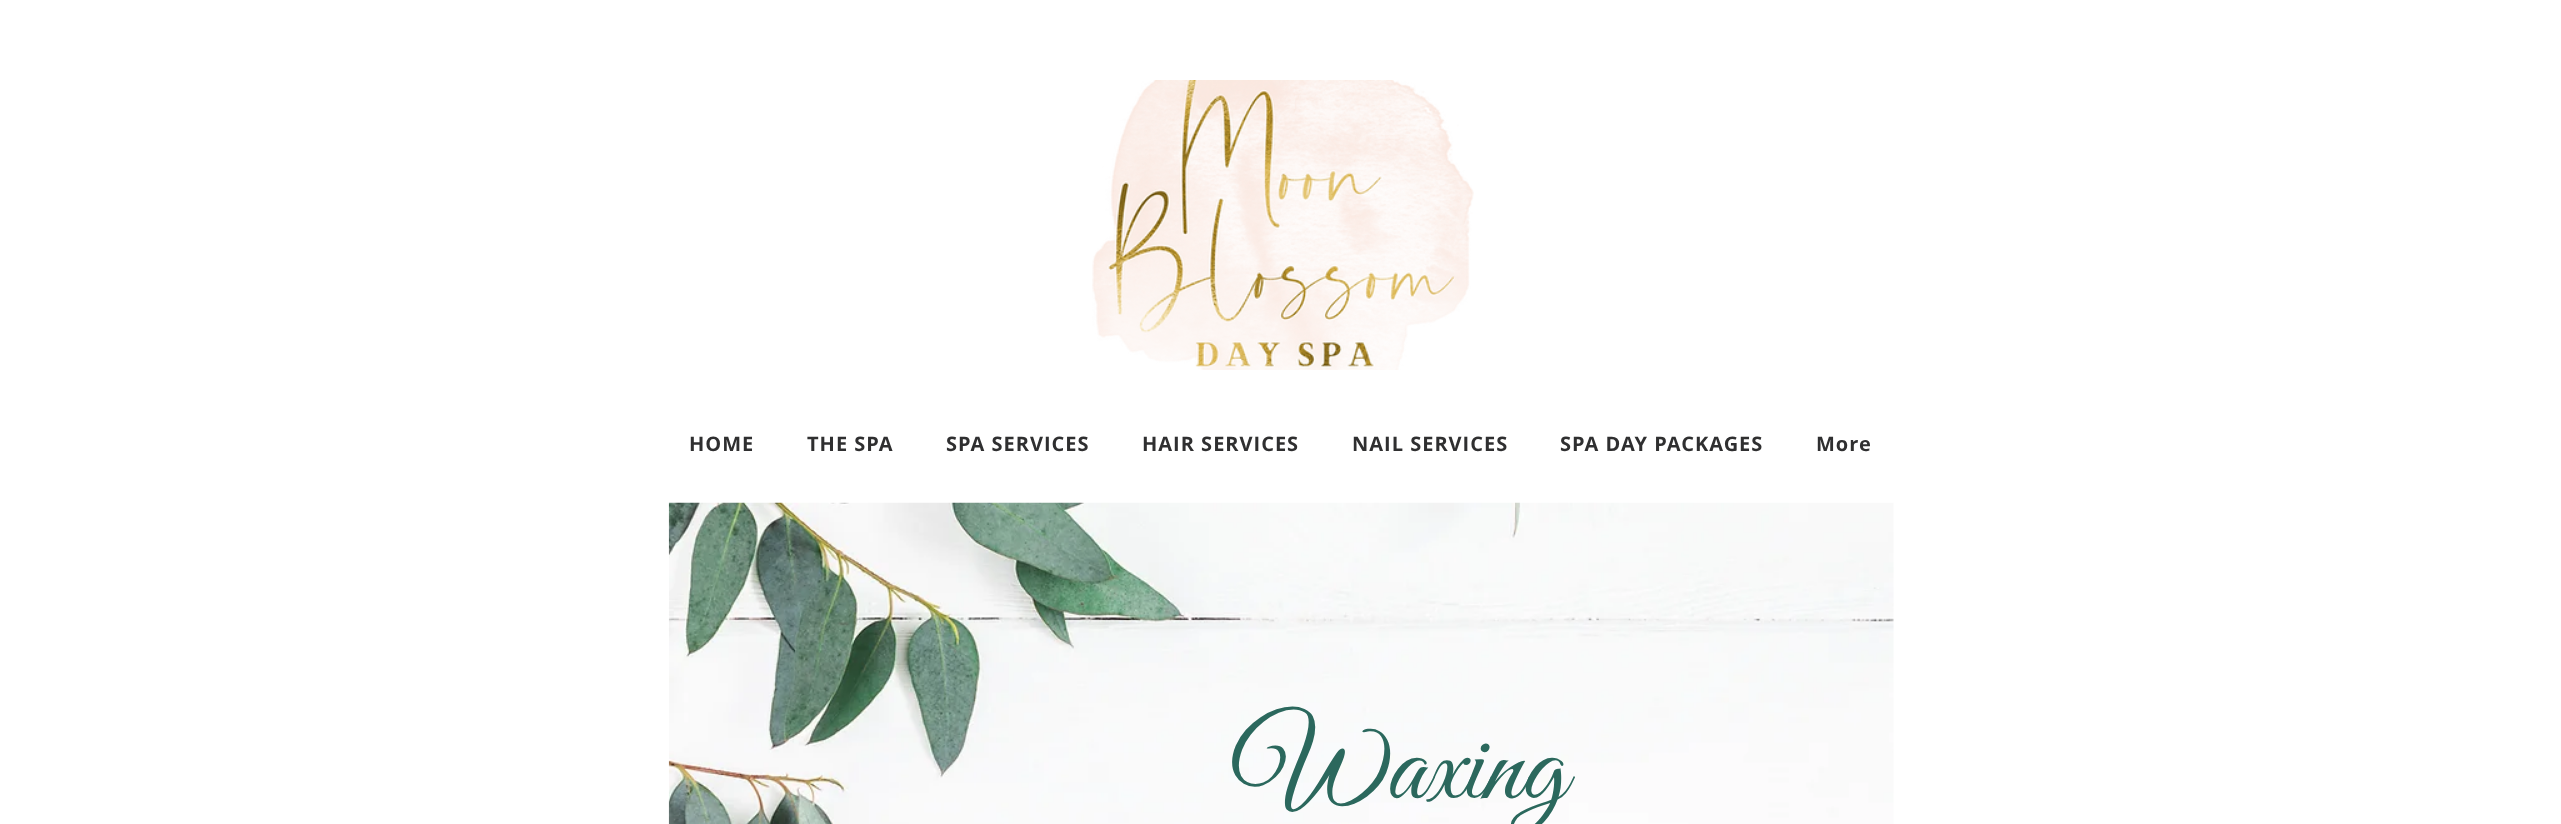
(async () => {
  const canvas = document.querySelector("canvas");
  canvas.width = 2561;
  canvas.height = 824;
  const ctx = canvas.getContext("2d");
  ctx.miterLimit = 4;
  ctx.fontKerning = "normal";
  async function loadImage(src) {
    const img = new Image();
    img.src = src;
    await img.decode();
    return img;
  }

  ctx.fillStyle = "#ffffff";
  ctx.fillRect(0, 0, 2561, 824);
  ctx.drawImage(await loadImage("img/1.png"), 1092, 80, 382, 290);
  ctx.drawImage(await loadImage("img/2.png"), 668, 502, 1226, 322);
  ctx.letterSpacing = "1px";
  ctx.font = "bold 20px Open Sans";
  ctx.fillStyle = "#2f2f30";
  for (const [text, x, y] of [
    ["HOME", 689, 451],
    ["THE SPA", 807, 451],
    ["SPA SERVICES", 946, 451],
    ["HAIR SERVICES", 1142, 451],
    ["NAIL SERVICES", 1352, 451],
    ["SPA DAY PACKAGES", 1560, 451],
    ["More", 1816, 451],
  ]) {
    ctx.fillText(text, x, y);
  }
  ctx.letterSpacing = "0px";
  ctx.font = "112.5px Great Vibes";
  ctx.fillStyle = "#2b685d";
  ctx.fillText("Waxing", 1234, 798);
})();
